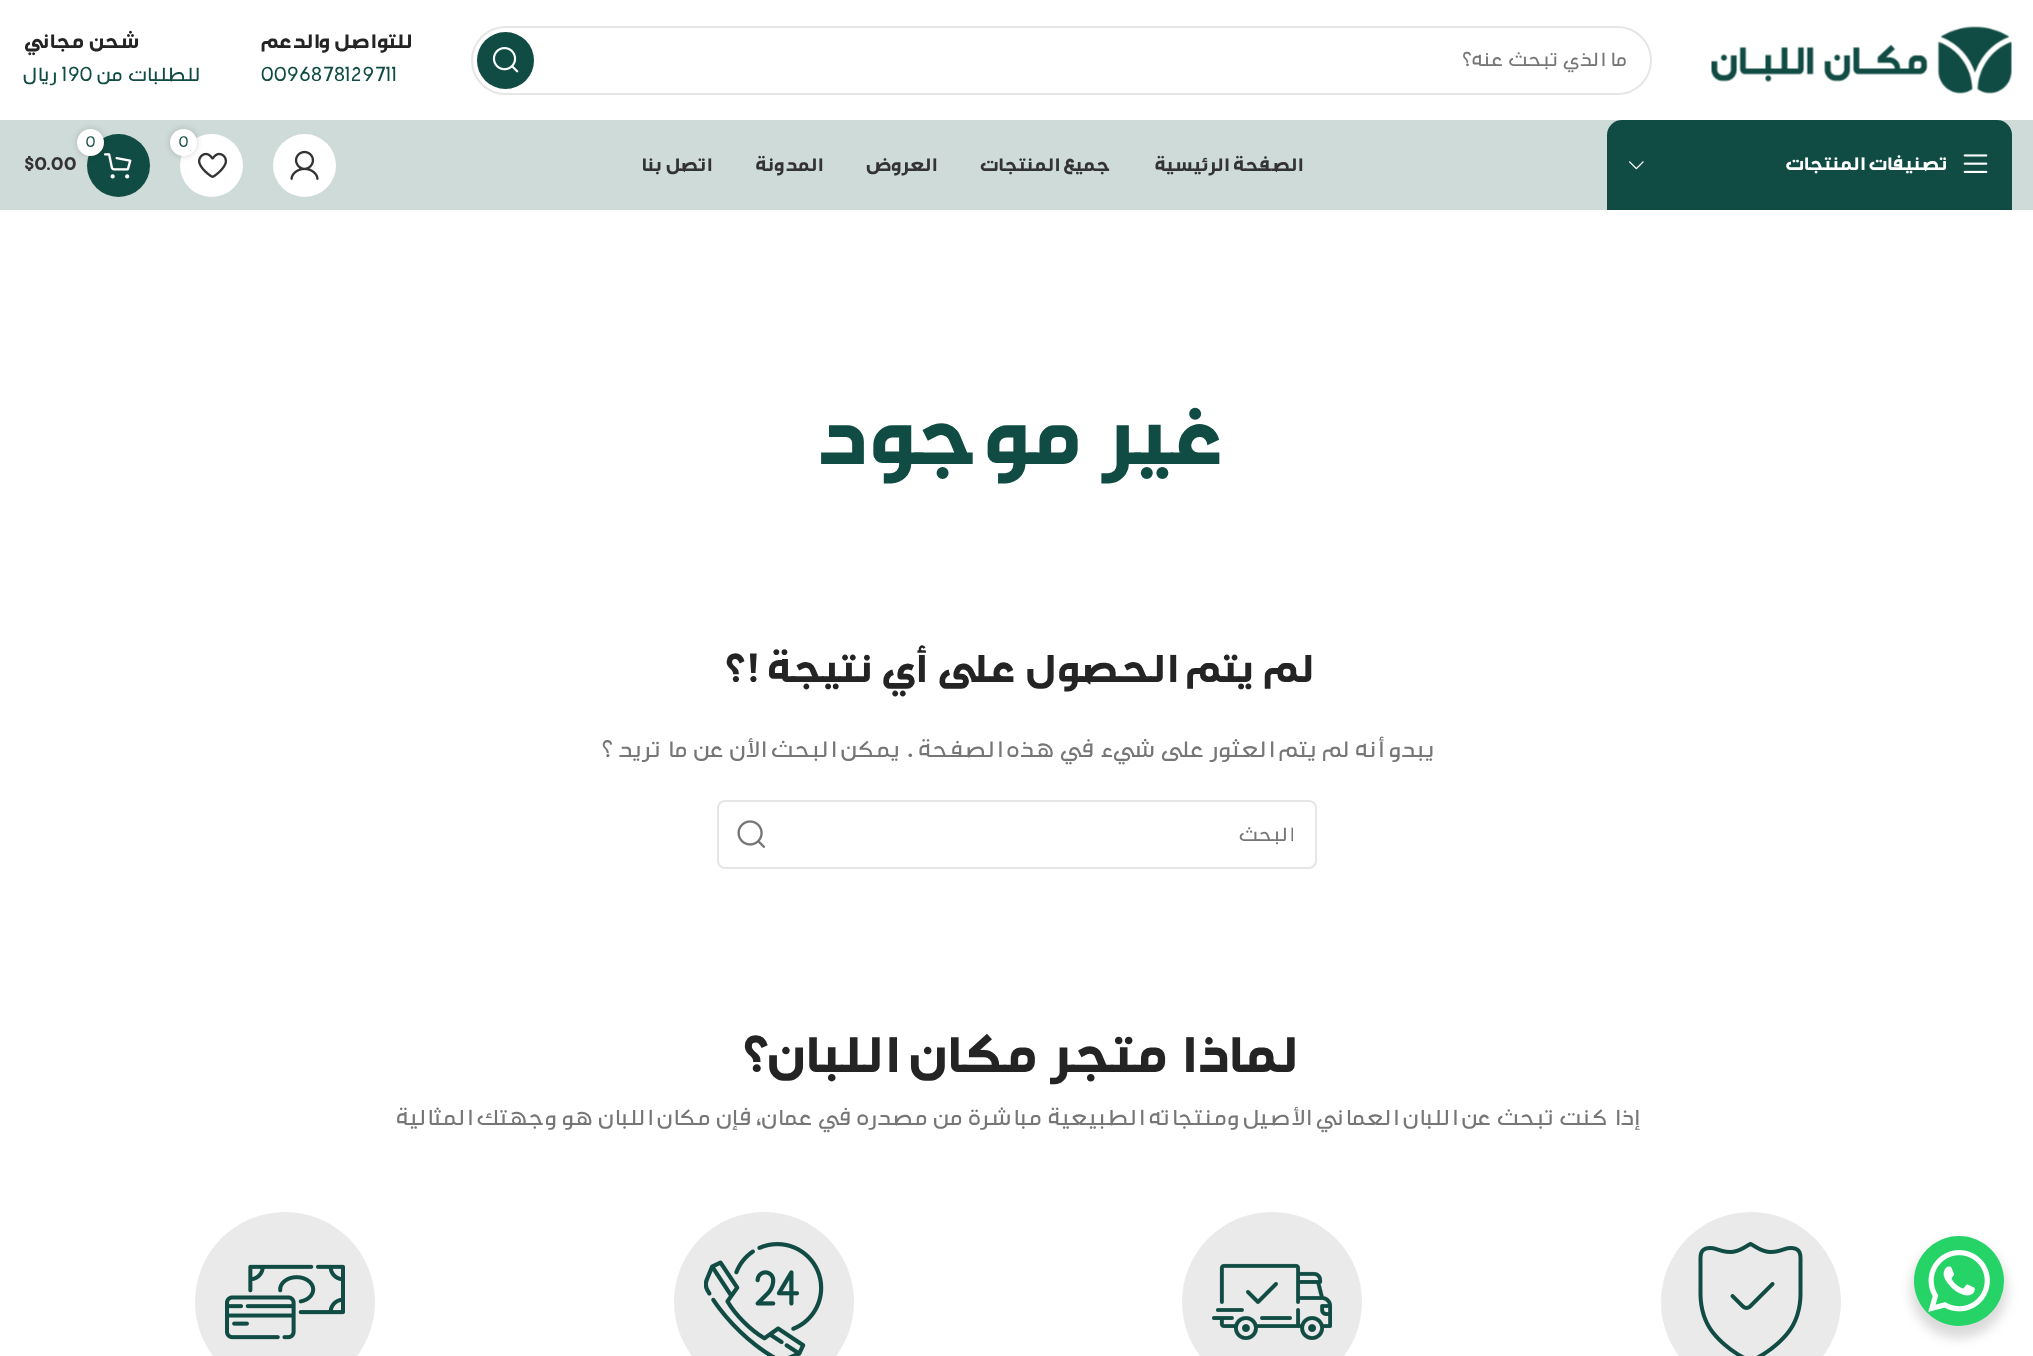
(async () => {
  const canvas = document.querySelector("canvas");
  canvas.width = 2033;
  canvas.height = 1356;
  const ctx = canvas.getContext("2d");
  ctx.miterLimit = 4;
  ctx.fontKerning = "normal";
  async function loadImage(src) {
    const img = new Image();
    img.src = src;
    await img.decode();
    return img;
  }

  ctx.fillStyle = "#ffffff";
  ctx.fillRect(0, 0, 2033, 1356);
  ctx.drawImage(await loadImage("img/1.png"), 1711, 26, 301, 68);
  ctx.beginPath();
  ctx.roundRect(472, 27, 1179, 67, 33.5);
  ctx.strokeStyle = "#e6e6e6";
  ctx.lineWidth = 2;
  ctx.stroke();
  ctx.fillStyle = "#104c43";
  ctx.beginPath();
  ctx.arc(505.5, 60.5, 28.5, 0, Math.PI * 2);
  ctx.fill();
  ctx.drawImage(await loadImage("img/2.png"), 492, 47, 27, 26);
  ctx.fillStyle = "#cfdbd9";
  ctx.fillRect(0, 120, 2033, 90);
  ctx.fillStyle = "#104c43";
  ctx.beginPath();
  ctx.roundRect(1607, 120, 405, 90, [15, 15, 0, 0]);
  ctx.fill();
  ctx.drawImage(await loadImage("img/3.png"), 1963, 154, 25, 19);
  ctx.drawImage(await loadImage("img/4.png"), 1629, 161, 15, 9);
  ctx.fillStyle = "#ffffff";
  ctx.beginPath();
  ctx.arc(304.5, 165.5, 31.5, 0, Math.PI * 2);
  ctx.fill();
  ctx.drawImage(await loadImage("img/5.png"), 290, 150, 29, 30);
  ctx.beginPath();
  ctx.arc(211.5, 165.5, 31.5, 0, Math.PI * 2);
  ctx.fill();
  ctx.drawImage(await loadImage("img/6.png"), 198, 152, 30, 26);
  ctx.fillStyle = "rgba(0, 0, 0, 0.17)";
  ctx.filter = "blur(3px)";
  ctx.beginPath();
  ctx.roundRect(170, 129, 27, 27, 13.5);
  ctx.fill();
  ctx.filter = "none";
  ctx.fillStyle = "#ffffff";
  ctx.beginPath();
  ctx.arc(183.5, 142.5, 13.5, 0, Math.PI * 2);
  ctx.fill();
  ctx.fillStyle = "#104c43";
  ctx.beginPath();
  ctx.arc(118.5, 165.5, 31.5, 0, Math.PI * 2);
  ctx.fill();
  ctx.drawImage(await loadImage("img/7.png"), 104, 153, 28, 26);
  ctx.fillStyle = "rgba(0, 0, 0, 0.17)";
  ctx.filter = "blur(3px)";
  ctx.beginPath();
  ctx.roundRect(77, 129, 27, 27, 13.5);
  ctx.fill();
  ctx.filter = "none";
  ctx.fillStyle = "#ffffff";
  ctx.beginPath();
  ctx.arc(90.5, 142.5, 13.5, 0, Math.PI * 2);
  ctx.fill();
  ctx.beginPath();
  ctx.roundRect(718, 801, 598, 67, 7);
  ctx.stroke();
  ctx.drawImage(await loadImage("img/8.png"), 737, 820, 29, 28);
  ctx.fillStyle = "#eaeaea";
  ctx.beginPath();
  ctx.arc(1751, 1302, 90, 0, Math.PI * 2);
  ctx.fill();
  ctx.drawImage(await loadImage("img/9.png"), 1698, 1242, 105, 114);
  ctx.beginPath();
  ctx.arc(1272, 1302, 90, 0, Math.PI * 2);
  ctx.fill();
  ctx.drawImage(await loadImage("img/10.png"), 1212, 1263, 120, 77);
  ctx.beginPath();
  ctx.arc(764, 1302, 90, 0, Math.PI * 2);
  ctx.fill();
  ctx.drawImage(await loadImage("img/11.png"), 704, 1242, 120, 114);
  ctx.beginPath();
  ctx.arc(285, 1302, 90, 0, Math.PI * 2);
  ctx.fill();
  ctx.drawImage(await loadImage("img/12.png"), 225, 1264, 120, 76);
  ctx.fillStyle = "rgba(0, 0, 0, 0.15)";
  ctx.filter = "blur(6px)";
  ctx.beginPath();
  ctx.roundRect(1911, 1242, 96, 96, 48);
  ctx.fill();
  ctx.filter = "none";
  ctx.fillStyle = "#25d366";
  ctx.beginPath();
  ctx.arc(1959, 1281, 45, 0, Math.PI * 2);
  ctx.fill();
  ctx.drawImage(await loadImage("img/13.png"), 1928, 1250, 62, 62);
  ctx.direction = "rtl";
  ctx.font = "21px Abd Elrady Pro";
  ctx.fillStyle = "#767676";
  ctx.fillText("ما الذي تبحث عنه؟", 1627, 66);
  ctx.font = "bold 21px Abd Elrady Pro";
  ctx.fillStyle = "#242424";
  ctx.fillText("للتواصل والدعم", 412, 48);
  ctx.direction = "ltr";
  ctx.font = "21px Abd Elrady Pro";
  ctx.fillStyle = "#104c43";
  ctx.fillText("0096878129711", 260, 81);
  ctx.direction = "rtl";
  ctx.font = "bold 21px Abd Elrady Pro";
  ctx.fillStyle = "#242424";
  ctx.fillText("شحن مجاني", 139, 48);
  ctx.font = "21px Abd Elrady Pro";
  ctx.fillStyle = "#104c43";
  ctx.fillText("للطلبات من", 200, 81);
  ctx.direction = "ltr";
  ctx.fillText("190", 61, 81);
  ctx.direction = "rtl";
  ctx.fillText("ريال", 56, 81);
  ctx.font = "bold 19.5px Abd Elrady Pro";
  ctx.fillStyle = "#ffffff";
  ctx.fillText("تصنيفات المنتجات", 1947, 170);
  ctx.fillStyle = "#333333";
  for (const [text, x, y] of [
    ["الصفحة الرئيسية", 1302, 171],
    ["جميع المنتجات", 1110, 171],
    ["العروض", 936, 171],
    ["المدونة", 822, 171],
    ["اتصل بنا", 711, 171],
  ]) {
    ctx.fillText(text, x, y);
  }
  ctx.direction = "ltr";
  ctx.font = "16px Abd Elrady Pro";
  ctx.fillStyle = "#104c43";
  ctx.fillText("0", 178, 147);
  ctx.fillText("0", 85, 147);
  ctx.font = "bold 19.5px Abd Elrady Pro";
  ctx.fillStyle = "#333333";
  ctx.fillText("$0.00", 23, 170);
  ctx.direction = "rtl";
  ctx.font = "bold 85.5px Abd Elrady Pro";
  ctx.fillStyle = "#104c43";
  ctx.fillText("غير موجود", 1223, 464);
  ctx.font = "bold 42px Abd Elrady Pro";
  ctx.fillStyle = "#242424";
  ctx.fillText("لم يتم الحصول على أي نتيجة !؟", 1313, 682);
  ctx.font = "24.75px Abd Elrady Pro";
  ctx.fillStyle = "#767676";
  ctx.fillText("يبدو أنه لم يتم العثور على شيء في هذه الصفحة . يمكن البحث الأن عن ما تريد ؟", 1434, 757);
  ctx.save();
  ctx.beginPath();
  ctx.rect(833, 821, 460, 27);
  ctx.clip();
  ctx.font = "21px Abd Elrady Pro";
  ctx.fillText("البحث", 1293, 841);
  ctx.restore();
  ctx.font = "bold 54px Abd Elrady Pro";
  ctx.fillStyle = "#242424";
  ctx.fillText("لماذا متجر مكان اللبان؟", 1297, 1072);
  ctx.font = "24px Abd Elrady Pro";
  ctx.fillStyle = "#767676";
  ctx.fillText("إذا كنت تبحث عن اللبان العماني الأصيل ومنتجاته الطبيعية مباشرة من مصدره في عمان، فإن مكان اللبان هو وجهتك المثالية", 1639, 1125);
})();
